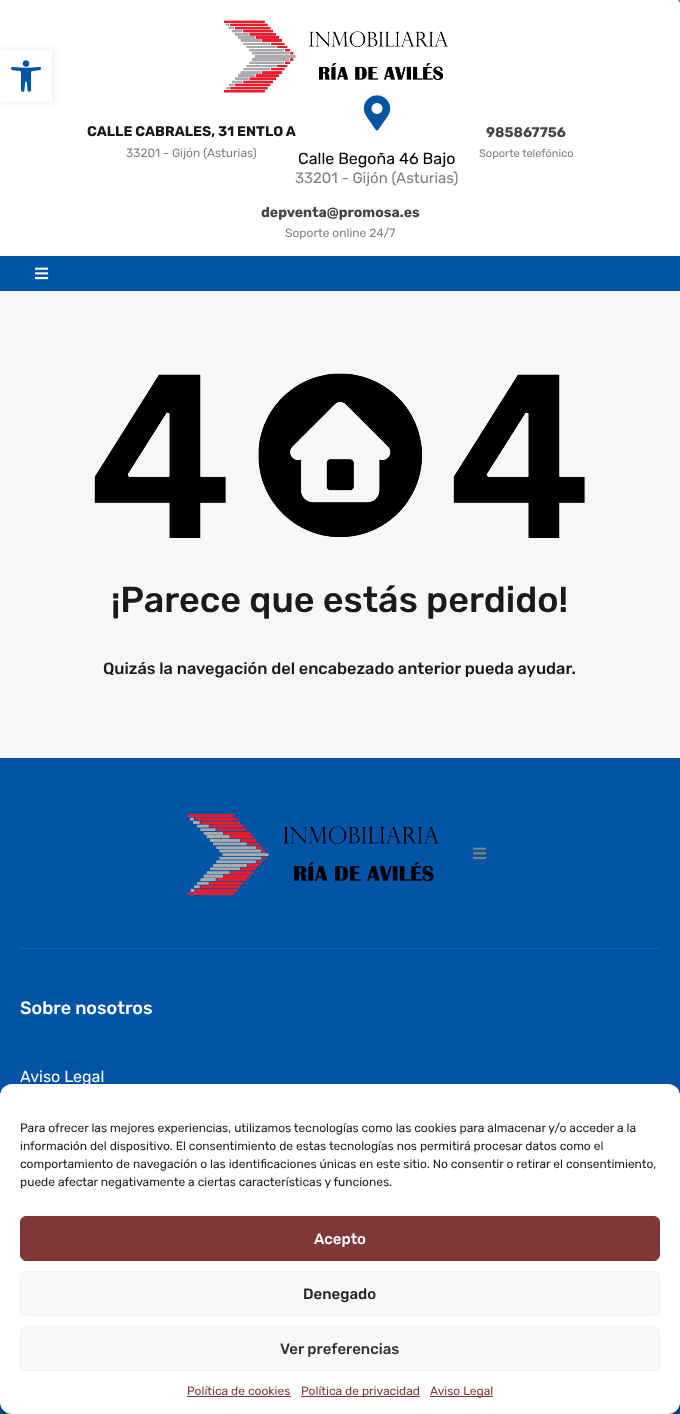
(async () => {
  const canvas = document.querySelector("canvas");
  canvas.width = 680;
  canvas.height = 1414;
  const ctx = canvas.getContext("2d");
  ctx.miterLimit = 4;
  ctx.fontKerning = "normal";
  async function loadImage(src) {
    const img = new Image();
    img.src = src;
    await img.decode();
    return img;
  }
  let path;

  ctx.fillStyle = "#f7f7f7";
  ctx.fillRect(0, 0, 680, 1414);
  ctx.fillStyle = "#ffffff";
  ctx.fillRect(0, 0, 680, 256);
  ctx.save();
  path = new Path2D("M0 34H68V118H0ZM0 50H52V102H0Z");
  ctx.clip(path, "evenodd");
  ctx.fillStyle = "rgba(0, 0, 0, 0.1)";
  ctx.filter = "blur(5px)";
  ctx.beginPath();
  ctx.rect(0, 50, 52, 52);
  ctx.fill();
  ctx.filter = "none";
  ctx.restore();
  ctx.drawImage(await loadImage("img/1.png"), 11, 60, 30, 32);
  path = new Path2D("M678.5 1H680");
  ctx.strokeStyle = "#1ea69a";
  ctx.lineWidth = 2;
  ctx.stroke(path);
  ctx.drawImage(await loadImage("img/2.png"), 223, 20, 225, 73);
  ctx.drawImage(await loadImage("img/3.png"), 363, 95, 28, 36);
  ctx.fillStyle = "#0054a6";
  ctx.fillRect(0, 256, 680, 35);
  ctx.drawImage(await loadImage("img/4.png"), 35, 267, 14, 13);
  ctx.drawImage(await loadImage("img/5.png"), 94, 373, 491, 165);
  ctx.fillRect(0, 758, 680, 656);
  ctx.fillStyle = "#1460aa";
  ctx.fillRect(20, 948, 640, 1);
  ctx.drawImage(await loadImage("img/6.png"), 187, 814, 253, 81);
  ctx.drawImage(await loadImage("img/7.png"), 473, 847, 14, 13);
  ctx.fillStyle = "rgba(0, 0, 0, 0.23)";
  ctx.filter = "blur(3px)";
  ctx.beginPath();
  ctx.roundRect(0, 1090, 680, 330, 12);
  ctx.fill();
  ctx.filter = "none";
  ctx.fillStyle = "rgba(0, 0, 0, 0.19)";
  ctx.filter = "blur(10px)";
  ctx.beginPath();
  ctx.roundRect(0, 1094, 680, 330, 12);
  ctx.fill();
  ctx.filter = "none";
  ctx.fillStyle = "#ffffff";
  ctx.beginPath();
  ctx.roundRect(0, 1084, 680, 330, 12);
  ctx.fill();
  ctx.fillStyle = "#803737";
  ctx.beginPath();
  ctx.roundRect(20.5, 1216.5, 639, 44, 5.5);
  ctx.fill();
  ctx.strokeStyle = "#803737";
  ctx.lineWidth = 1;
  ctx.stroke();
  ctx.fillStyle = "#f9f9f9";
  ctx.beginPath();
  ctx.roundRect(20.5, 1271.5, 639, 44, 5.5);
  ctx.fill();
  ctx.strokeStyle = "#f2f2f2";
  ctx.stroke();
  ctx.beginPath();
  ctx.roundRect(20.5, 1326.5, 639, 44, 5.5);
  ctx.fill();
  ctx.stroke();
  for (const [x, y, w, h, color] of [
    [187, 1396, 104, 1, "#803737"],
    [301, 1396, 119, 1, "#803737"],
    [430, 1396, 63, 1, "#803737"],
  ]) {
    ctx.fillStyle = color;
    ctx.fillRect(x, y, w, h);
  }
  ctx.font = "bold 14px Rubik";
  ctx.fillStyle = "#1a1a1a";
  ctx.fillText("CALLE CABRALES, 31 ENTLO A", 87, 136);
  ctx.font = "12px Rubik";
  ctx.fillStyle = "#808080";
  ctx.fillText("33201 - Gijón (Asturias)", 126, 157);
  ctx.font = "bold 14px Rubik";
  ctx.fillStyle = "#444444";
  ctx.fillText("985867756", 486, 137);
  ctx.font = "11px Rubik";
  ctx.fillStyle = "#808080";
  ctx.fillText("Soporte telefónico", 479, 157);
  ctx.font = "16px Rubik";
  ctx.fillStyle = "#020101";
  ctx.fillText("Calle Begoña 46 Bajo", 298, 164);
  ctx.font = "15px Rubik";
  ctx.fillStyle = "#808080";
  ctx.fillText("33201 - Gijón (Asturias)", 295, 183);
  ctx.font = "bold 14px Rubik";
  ctx.fillStyle = "#444444";
  ctx.fillText("depventa@promosa.es", 261, 217);
  ctx.font = "12px Rubik";
  ctx.fillStyle = "#808080";
  ctx.fillText("Soporte online 24/7", 285, 237);
  ctx.font = "500 36px Rubik";
  ctx.fillStyle = "#1a1a1a";
  ctx.fillText("¡Parece que estás perdido!", 111, 612);
  ctx.font = "500 16.35px Rubik";
  ctx.fillText("Quizás la navegación del encabezado anterior pueda ayudar.", 103, 674);
  ctx.font = "500 18px Rubik";
  ctx.fillStyle = "#ffffff";
  ctx.fillText("Sobre nosotros", 20, 1014);
  ctx.font = "16px Rubik";
  ctx.fillText("Aviso Legal", 20, 1082);
  ctx.font = "12px Rubik";
  ctx.fillStyle = "#222222";
  for (const [text, x, y] of [
    ["Para ofrecer las mejores experiencias, utilizamos tecnologías como las cookies para almacenar y/o acceder a la", 20, 1132],
    ["información del dispositivo. El consentimiento de estas tecnologías nos permitirá procesar datos como el", 20, 1150],
    ["comportamiento de navegación o las identificaciones únicas en este sitio. No consentir o retirar el consentimiento,", 20, 1168],
    ["puede afectar negativamente a ciertas características y funciones.", 20, 1186],
  ]) {
    ctx.fillText(text, x, y);
  }
  ctx.font = "500 15px Rubik";
  ctx.fillStyle = "#ffffff";
  ctx.fillText("Acepto", 314, 1244);
  ctx.fillStyle = "#222222";
  ctx.fillText("Denegado", 303, 1299);
  ctx.fillStyle = "#333333";
  ctx.fillText("Ver preferencias", 280, 1354);
  ctx.font = "12px Rubik";
  ctx.fillStyle = "#803737";
  for (const [text, x, y] of [
    ["Política de cookies", 187, 1395],
    ["Política de privacidad", 301, 1395],
    ["Aviso Legal", 430, 1395],
  ]) {
    ctx.fillText(text, x, y);
  }
})();
